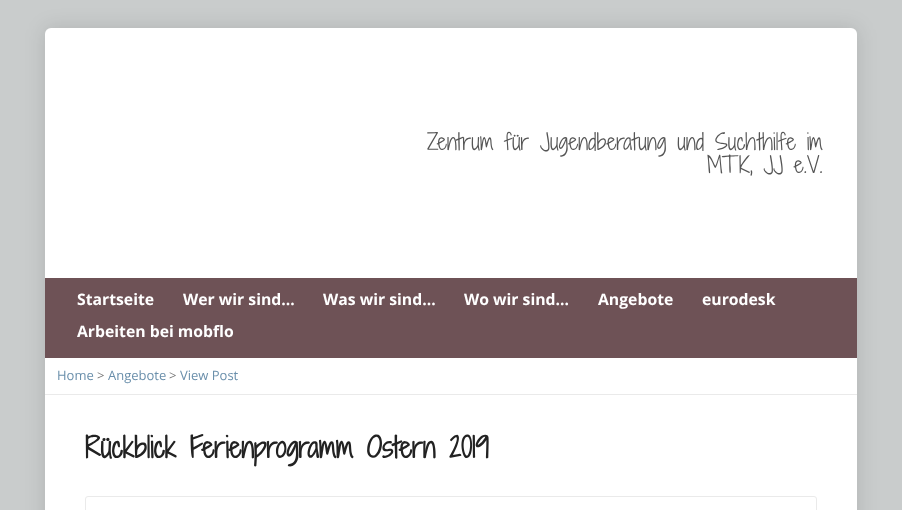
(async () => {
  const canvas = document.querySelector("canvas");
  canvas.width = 902;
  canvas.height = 510;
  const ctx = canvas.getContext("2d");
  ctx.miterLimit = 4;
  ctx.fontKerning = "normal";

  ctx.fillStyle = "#c9cccc";
  ctx.fillRect(0, 0, 902, 510);
  ctx.fillStyle = "rgba(0, 0, 0, 0.12)";
  ctx.filter = "blur(10px)";
  ctx.beginPath();
  ctx.roundRect(45, 28, 812, 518, 6);
  ctx.fill();
  ctx.filter = "none";
  ctx.fillStyle = "#ffffff";
  ctx.beginPath();
  ctx.roundRect(45, 28, 812, 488, 6);
  ctx.fill();
  ctx.fillStyle = "#6e5256";
  ctx.fillRect(45, 278, 812, 80);
  ctx.fillStyle = "#eaeaea";
  ctx.fillRect(45, 394, 812, 1);
  ctx.beginPath();
  ctx.roundRect(85.5, 496.5, 731, 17, 2.5);
  ctx.strokeStyle = "#eaeaea";
  ctx.stroke();
  ctx.font = "300 21.6px Shadows Into Light Two";
  ctx.fillStyle = "#555555";
  ctx.fillText("Zentrum für Jugendberatung und Suchthilfe im", 427, 150);
  ctx.fillText("MTK, JJ e.V.", 707, 173);
  ctx.font = "bold 15.75px Open Sans";
  ctx.fillStyle = "#ffffff";
  for (const [text, x, y] of [
    ["Startseite", 77, 305],
    ["Wer wir sind…", 183, 305],
    ["Was wir sind…", 323, 305],
    ["Wo wir sind…", 464, 305],
    ["Angebote", 598, 305],
    ["eurodesk", 702, 305],
    ["Arbeiten bei mobflo", 77, 337],
  ]) {
    ctx.fillText(text, x, y);
  }
  ctx.font = "13px Open Sans";
  ctx.fillStyle = "#6a8fab";
  ctx.fillText("Home", 57, 380);
  ctx.fillStyle = "#777777";
  ctx.fillText(">", 97, 380);
  ctx.fillStyle = "#6a8fab";
  ctx.fillText("Angebote", 108, 380);
  ctx.fillStyle = "#777777";
  ctx.fillText(">", 169, 380);
  ctx.fillStyle = "#6a8fab";
  ctx.fillText("View Post", 180, 380);
  ctx.font = "bold 27.4px Shadows Into Light Two";
  ctx.fillStyle = "#222222";
  ctx.fillText("Rückblick Ferienprogramm Ostern 2019", 85, 458);
})();
